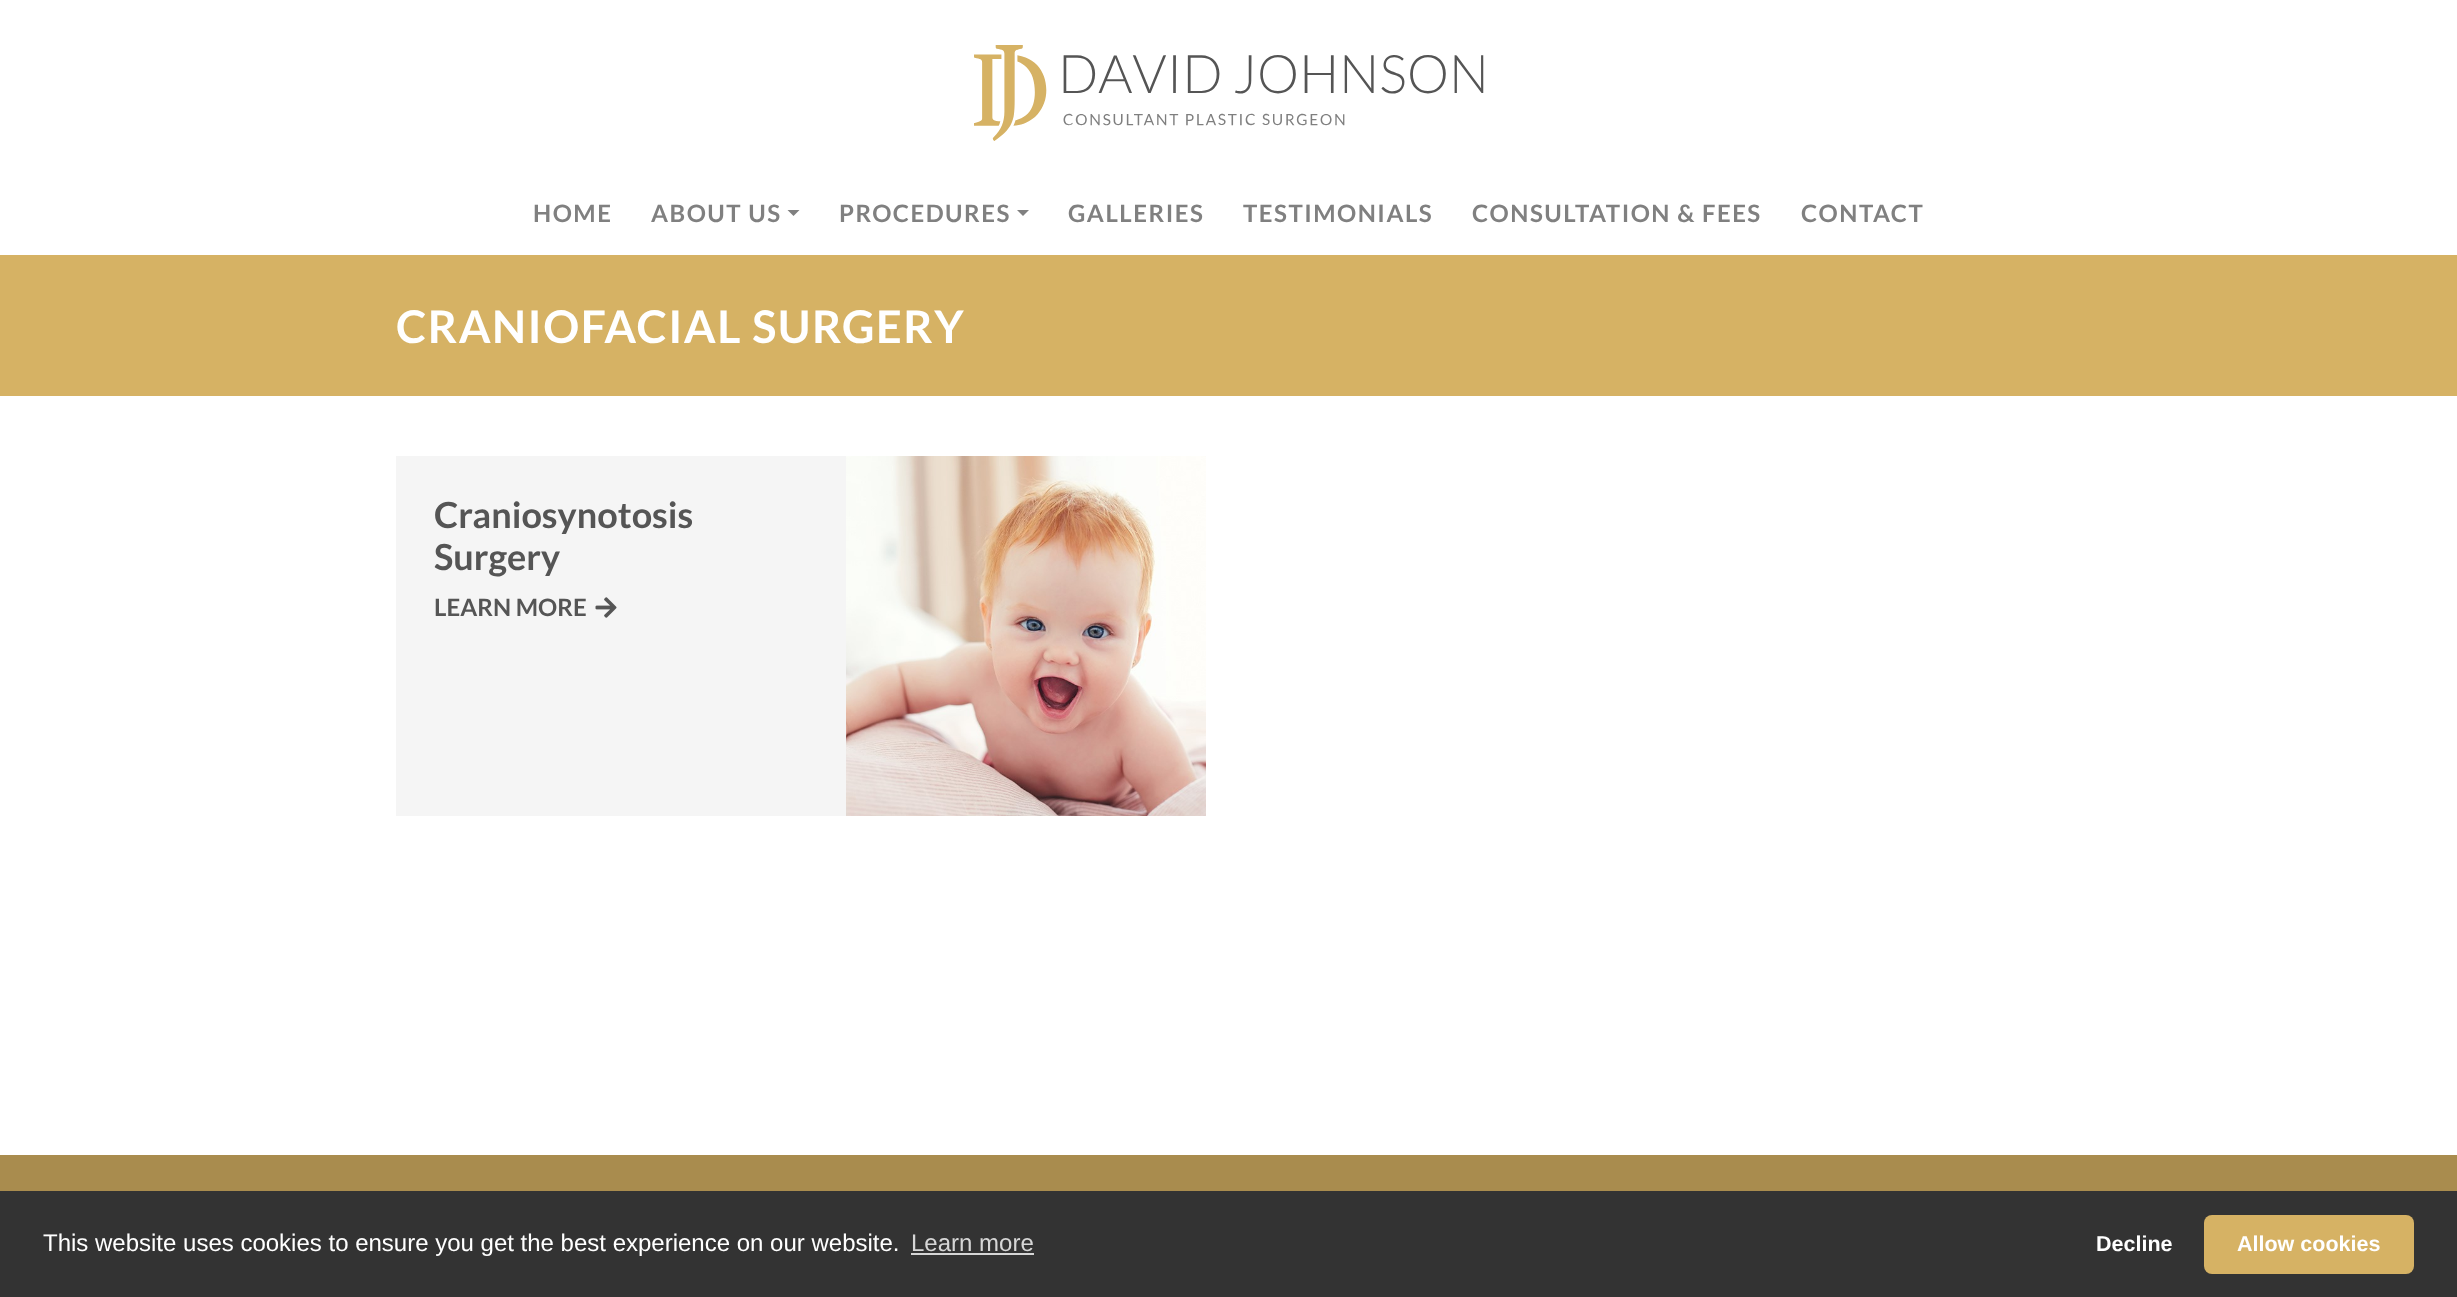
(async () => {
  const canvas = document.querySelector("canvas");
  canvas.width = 2457;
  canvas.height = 1297;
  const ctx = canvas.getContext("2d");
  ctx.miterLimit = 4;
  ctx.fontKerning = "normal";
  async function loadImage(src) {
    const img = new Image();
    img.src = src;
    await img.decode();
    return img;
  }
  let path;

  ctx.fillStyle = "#ffffff";
  ctx.fillRect(0, 0, 2457, 1297);
  ctx.drawImage(await loadImage("img/1.png"), 974, 45, 510, 96);
  ctx.fillStyle = "#808080";
  path = new Path2D("M787.5 210H799.5L793.5 216Z");
  ctx.fill(path);
  path = new Path2D("M1017 210H1029L1023 216Z");
  ctx.fill(path);
  ctx.fillStyle = "#d6b264";
  ctx.fillRect(0, 255, 2457, 141);
  ctx.fillStyle = "#f5f5f5";
  ctx.fillRect(396, 456, 450, 360);
  ctx.drawImage(await loadImage("img/2.png"), 595, 597, 22, 21);
  ctx.drawImage(await loadImage("img/3.png"), 846, 456, 360, 360);
  for (const [x, y, w, h, color] of [
    [0, 1155, 2457, 36, "#a98c4e"],
    [0, 1191, 2457, 106, "#333333"],
    [911, 1253, 123, 2, "#d6d6d6"],
  ]) {
    ctx.fillStyle = color;
    ctx.fillRect(x, y, w, h);
  }
  ctx.fillStyle = "#d6b264";
  ctx.beginPath();
  ctx.roundRect(2204, 1215, 210, 59, 8);
  ctx.fill();
  ctx.letterSpacing = "1.5px";
  ctx.font = "bold 24px Lato";
  ctx.fillStyle = "#808080";
  for (const [text, x, y] of [
    ["HOME", 533, 222],
    ["ABOUT US", 651, 222],
    ["PROCEDURES", 839, 222],
    ["GALLERIES", 1068, 222],
    ["TESTIMONIALS", 1243, 222],
    ["CONSULTATION & FEES", 1472, 222],
    ["CONTACT", 1801, 222],
  ]) {
    ctx.fillText(text, x, y);
  }
  ctx.font = "bold 45px Lato";
  ctx.fillStyle = "#ffffff";
  ctx.fillText("CRANIOFACIAL SURGERY", 396, 343);
  ctx.letterSpacing = "0px";
  ctx.font = "bold 36px Lato";
  ctx.fillStyle = "#555555";
  ctx.fillText("Craniosynotosis", 434, 528);
  ctx.fillText("Surgery", 434, 570);
  ctx.font = "bold 24px Lato";
  ctx.fillText("LEARN MORE", 434, 616);
  ctx.font = "24px Liberation Sans";
  ctx.fillStyle = "#ffffff";
  ctx.fillText("This website uses cookies to ensure you get the best experience on our website.", 43, 1251);
  ctx.fillStyle = "#d6d6d6";
  ctx.fillText("Learn more", 911, 1251);
  ctx.font = "bold 21.5px Liberation Sans";
  ctx.fillStyle = "#ffffff";
  ctx.fillText("Decline", 2096, 1251);
  ctx.fillText("Allow cookies", 2237, 1251);
})();
